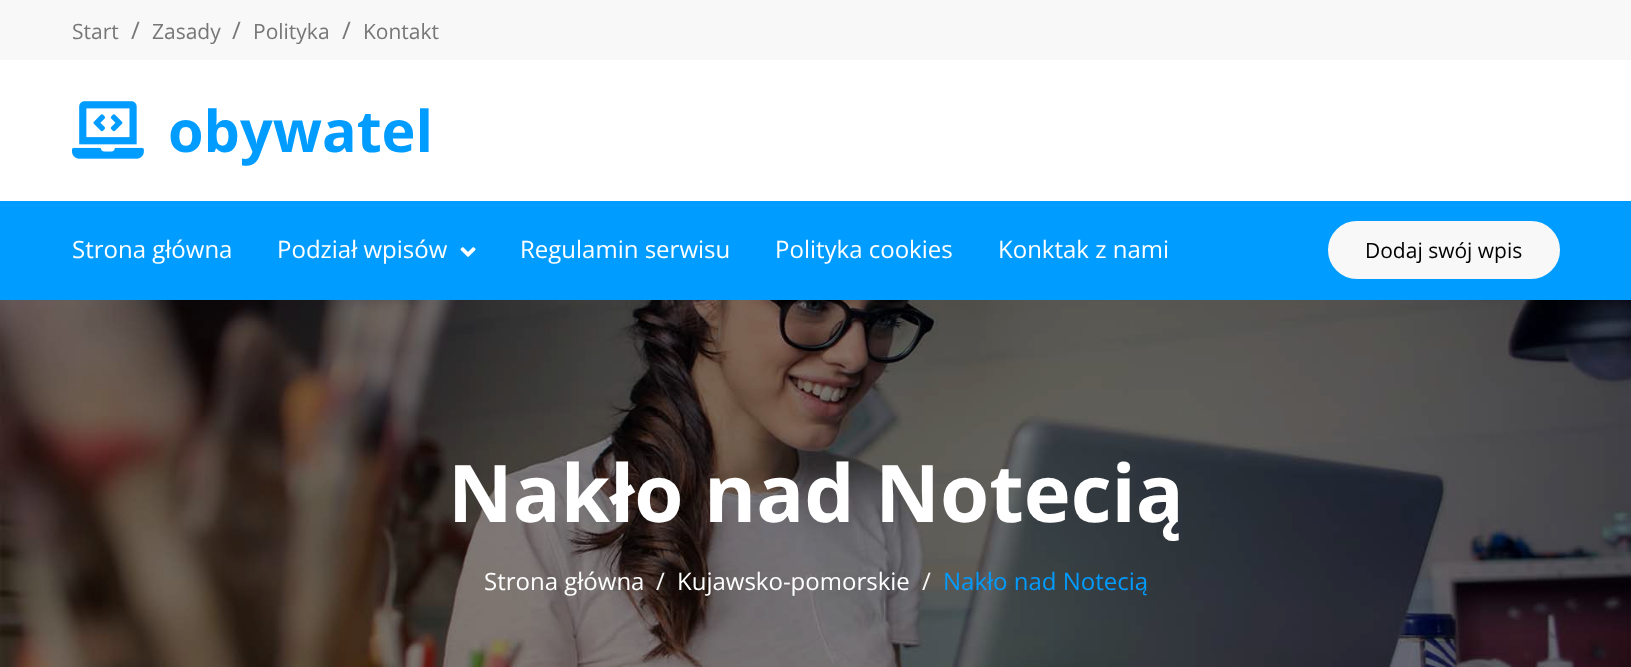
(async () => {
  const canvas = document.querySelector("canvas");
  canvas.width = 1631;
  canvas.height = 667;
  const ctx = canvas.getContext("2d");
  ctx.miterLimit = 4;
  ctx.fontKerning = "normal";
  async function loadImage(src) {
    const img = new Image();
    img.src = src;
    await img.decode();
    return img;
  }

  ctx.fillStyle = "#ffffff";
  ctx.fillRect(0, 0, 1631, 667);
  ctx.fillStyle = "#f8f8f8";
  ctx.fillRect(0, 0, 1631, 60);
  ctx.drawImage(await loadImage("img/1.png"), 72, 101, 72, 58);
  ctx.fillStyle = "#009cff";
  ctx.fillRect(0, 201, 1631, 99);
  ctx.drawImage(await loadImage("img/2.png"), 460, 247, 16, 10);
  ctx.fillStyle = "#f8f8f8";
  ctx.beginPath();
  ctx.roundRect(1329, 222, 230, 56, 28);
  ctx.fill();
  ctx.strokeStyle = "#f8f8f8";
  ctx.lineWidth = 2;
  ctx.stroke();
  ctx.drawImage(await loadImage("img/3.png"), 0, 300, 1631, 367);
  ctx.font = "21px Open Sans";
  ctx.fillStyle = "#777777";
  ctx.fillText("Start", 72, 39);
  ctx.font = "24px Open Sans";
  ctx.fillText("/", 131, 39);
  ctx.font = "21px Open Sans";
  ctx.fillText("Zasady", 152, 39);
  ctx.font = "24px Open Sans";
  ctx.fillText("/", 232, 39);
  ctx.font = "21px Open Sans";
  ctx.fillText("Polityka", 253, 39);
  ctx.font = "24px Open Sans";
  ctx.fillText("/", 342, 39);
  ctx.font = "21px Open Sans";
  ctx.fillText("Kontakt", 363, 39);
  ctx.font = "bold 57.5px Open Sans";
  ctx.fillStyle = "#009cff";
  ctx.fillText("obywatel", 168, 152);
  ctx.font = "24px Open Sans";
  ctx.fillStyle = "#ffffff";
  for (const [text, x, y] of [
    ["Strona główna", 72, 258],
    ["Podział wpisów", 277, 258],
    ["Regulamin serwisu", 520, 258],
    ["Polityka cookies", 775, 258],
    ["Konktak z nami", 998, 258],
  ]) {
    ctx.fillText(text, x, y);
  }
  ctx.font = "21px Open Sans";
  ctx.fillStyle = "#000000";
  ctx.fillText("Dodaj swój wpis", 1365, 258);
  ctx.font = "bold 79.5px Open Sans";
  ctx.fillStyle = "#ffffff";
  ctx.fillText("Nakło nad Notecią", 448, 522);
  ctx.font = "24px Open Sans";
  ctx.fillText("Strona główna", 484, 590);
  ctx.fillStyle = "#f8f8f8";
  ctx.fillText("/", 656, 590);
  ctx.fillStyle = "#ffffff";
  ctx.fillText("Kujawsko-pomorskie", 677, 590);
  ctx.fillStyle = "#f8f8f8";
  ctx.fillText("/", 922, 590);
  ctx.fillStyle = "#009cff";
  ctx.fillText("Nakło nad Notecią", 943, 590);
})();
